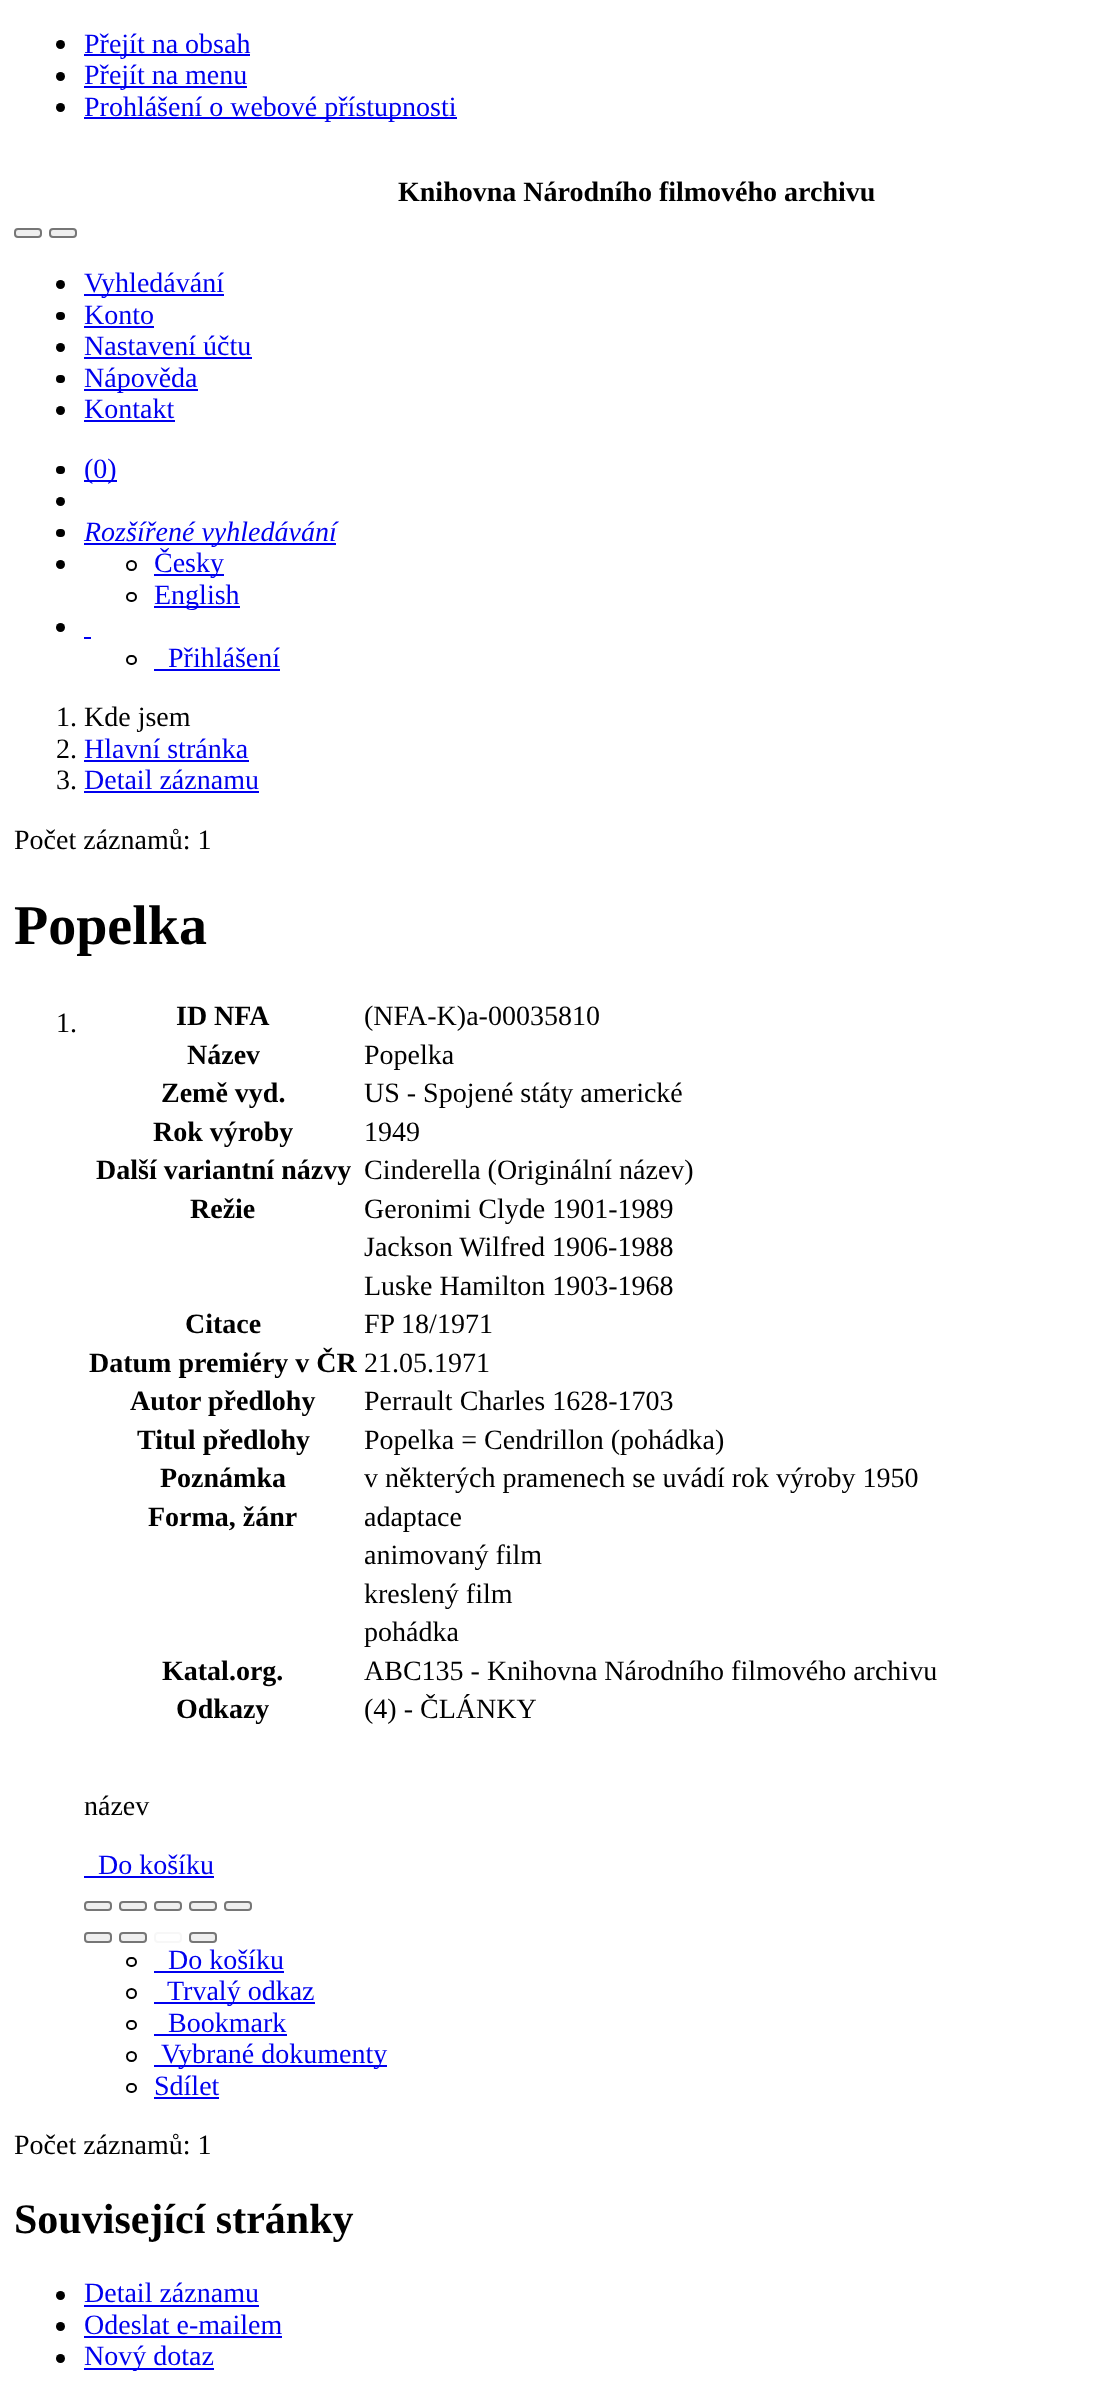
(async () => {
  const canvas = document.querySelector("canvas");
  canvas.width = 1104;
  canvas.height = 2391;
  const ctx = canvas.getContext("2d");
  ctx.miterLimit = 4;
  ctx.fontKerning = "normal";

  ctx.fillStyle = "#ffffff";
  ctx.fillRect(0, 0, 1104, 2391);
  ctx.fillStyle = "#000000";
  ctx.beginPath();
  ctx.arc(60.5, 44.5, 4.5, 0, Math.PI * 2);
  ctx.fill();
  ctx.fillStyle = "#0000ee";
  ctx.fillRect(84, 54, 166, 2);
  ctx.fillStyle = "#000000";
  ctx.beginPath();
  ctx.arc(60.5, 76.5, 4.5, 0, Math.PI * 2);
  ctx.fill();
  ctx.fillStyle = "#0000ee";
  ctx.fillRect(84, 86, 163, 2);
  ctx.fillStyle = "#000000";
  ctx.beginPath();
  ctx.arc(60.5, 107.5, 4.5, 0, Math.PI * 2);
  ctx.fill();
  ctx.fillStyle = "#0000ee";
  ctx.fillRect(84, 117, 373, 2);
  ctx.fillStyle = "#efefef";
  ctx.beginPath();
  ctx.roundRect(15, 229, 26, 8, 3);
  ctx.fill();
  ctx.strokeStyle = "#767676";
  ctx.lineWidth = 2;
  ctx.stroke();
  ctx.beginPath();
  ctx.roundRect(50, 229, 26, 8, 3);
  ctx.fill();
  ctx.stroke();
  ctx.fillStyle = "#000000";
  ctx.beginPath();
  ctx.arc(60.5, 284.5, 4.5, 0, Math.PI * 2);
  ctx.fill();
  ctx.fillStyle = "#0000ee";
  ctx.fillRect(84, 294, 140, 2);
  ctx.fillStyle = "#000000";
  ctx.beginPath();
  ctx.roundRect(56, 312, 9, 8, 4);
  ctx.fill();
  ctx.fillStyle = "#0000ee";
  ctx.fillRect(84, 326, 70, 2);
  ctx.fillStyle = "#000000";
  ctx.beginPath();
  ctx.arc(60.5, 347.5, 4.5, 0, Math.PI * 2);
  ctx.fill();
  ctx.fillStyle = "#0000ee";
  ctx.fillRect(84, 357, 168, 2);
  ctx.fillStyle = "#000000";
  ctx.beginPath();
  ctx.roundRect(56, 375, 9, 8, 4);
  ctx.fill();
  ctx.fillStyle = "#0000ee";
  ctx.fillRect(84, 389, 114, 2);
  ctx.fillStyle = "#000000";
  ctx.beginPath();
  ctx.arc(60.5, 410.5, 4.5, 0, Math.PI * 2);
  ctx.fill();
  ctx.fillStyle = "#0000ee";
  ctx.fillRect(84, 420, 91, 2);
  ctx.fillStyle = "#000000";
  ctx.beginPath();
  ctx.roundRect(56, 466, 9, 8, 4);
  ctx.fill();
  ctx.fillStyle = "#0000ee";
  ctx.fillRect(84, 480, 33, 2);
  ctx.fillStyle = "#000000";
  ctx.beginPath();
  ctx.arc(60.5, 501.5, 4.5, 0, Math.PI * 2);
  ctx.fill();
  ctx.beginPath();
  ctx.roundRect(56, 529, 9, 8, 4);
  ctx.fill();
  ctx.fillStyle = "#0000ee";
  ctx.fillRect(84, 543, 252, 2);
  ctx.fillStyle = "#000000";
  ctx.beginPath();
  ctx.arc(60.5, 564.5, 4.5, 0, Math.PI * 2);
  ctx.fill();
  ctx.beginPath();
  ctx.arc(131.5, 565.5, 4.5, 0, Math.PI * 2);
  ctx.strokeStyle = "#000000";
  ctx.stroke();
  ctx.fillStyle = "#0000ee";
  ctx.fillRect(154, 574, 70, 2);
  ctx.beginPath();
  ctx.roundRect(127, 593, 9, 8, 4);
  ctx.stroke();
  ctx.fillRect(154, 606, 86, 2);
  ctx.fillStyle = "#000000";
  ctx.beginPath();
  ctx.arc(60.5, 627.5, 4.5, 0, Math.PI * 2);
  ctx.fill();
  ctx.fillStyle = "#0000ee";
  ctx.fillRect(84, 637, 7, 2);
  ctx.beginPath();
  ctx.roundRect(127, 656, 9, 8, 4);
  ctx.stroke();
  for (const [x, y, w, h, color] of [
    [154, 669, 126, 2, "#0000ee"],
    [84, 760, 165, 2, "#0000ee"],
    [84, 791, 175, 2, "#0000ee"],
    [84, 1876, 130, 2, "#0000ee"],
  ]) {
    ctx.fillStyle = color;
    ctx.fillRect(x, y, w, h);
  }
  ctx.fillStyle = "#efefef";
  ctx.beginPath();
  ctx.roundRect(85, 1902, 26, 8, 3);
  ctx.fill();
  ctx.strokeStyle = "#767676";
  ctx.stroke();
  ctx.beginPath();
  ctx.roundRect(120, 1902, 26, 8, 3);
  ctx.fill();
  ctx.stroke();
  ctx.beginPath();
  ctx.roundRect(155, 1902, 26, 8, 3);
  ctx.fill();
  ctx.stroke();
  ctx.beginPath();
  ctx.roundRect(190, 1902, 26, 8, 3);
  ctx.fill();
  ctx.stroke();
  ctx.beginPath();
  ctx.roundRect(225, 1902, 26, 8, 3);
  ctx.fill();
  ctx.stroke();
  ctx.beginPath();
  ctx.roundRect(85, 1933, 26, 9, 3);
  ctx.fill();
  ctx.stroke();
  ctx.beginPath();
  ctx.roundRect(120, 1933, 26, 9, 3);
  ctx.fill();
  ctx.stroke();
  ctx.beginPath();
  ctx.roundRect(155, 1933, 26, 9, 3);
  ctx.strokeStyle = "#f7f7f7";
  ctx.stroke();
  ctx.beginPath();
  ctx.roundRect(190, 1933, 26, 9, 3);
  ctx.fill();
  ctx.strokeStyle = "#767676";
  ctx.stroke();
  ctx.beginPath();
  ctx.roundRect(127, 1958, 9, 8, 4);
  ctx.strokeStyle = "#000000";
  ctx.stroke();
  ctx.fillStyle = "#0000ee";
  ctx.fillRect(154, 1971, 130, 2);
  ctx.beginPath();
  ctx.arc(131.5, 1993.5, 4.5, 0, Math.PI * 2);
  ctx.stroke();
  ctx.fillRect(154, 2002, 161, 2);
  ctx.beginPath();
  ctx.roundRect(127, 2021, 9, 8, 4);
  ctx.stroke();
  ctx.fillRect(154, 2034, 133, 2);
  ctx.beginPath();
  ctx.arc(131.5, 2056.5, 4.5, 0, Math.PI * 2);
  ctx.stroke();
  ctx.fillRect(154, 2065, 233, 2);
  ctx.beginPath();
  ctx.roundRect(127, 2084, 9, 8, 4);
  ctx.stroke();
  ctx.fillRect(154, 2097, 65, 2);
  ctx.fillStyle = "#000000";
  ctx.beginPath();
  ctx.arc(60.5, 2295.5, 4.5, 0, Math.PI * 2);
  ctx.fill();
  ctx.fillStyle = "#0000ee";
  ctx.fillRect(84, 2305, 175, 2);
  ctx.fillStyle = "#000000";
  ctx.beginPath();
  ctx.arc(60.5, 2326.5, 4.5, 0, Math.PI * 2);
  ctx.fill();
  ctx.fillStyle = "#0000ee";
  ctx.fillRect(84, 2336, 198, 2);
  ctx.fillStyle = "#000000";
  ctx.beginPath();
  ctx.arc(60.5, 2358.5, 4.5, 0, Math.PI * 2);
  ctx.fill();
  ctx.fillStyle = "#0000ee";
  ctx.fillRect(84, 2368, 130, 2);
  ctx.font = "28px Liberation Serif";
  for (const [text, x, y] of [
    ["Přejít na obsah", 84, 53],
    ["Přejít na menu", 84, 84],
    ["Prohlášení o webové přístupnosti", 84, 116],
  ]) {
    ctx.fillText(text, x, y);
  }
  ctx.font = "bold 28px Liberation Serif";
  ctx.fillStyle = "#000000";
  ctx.fillText("Knihovna Národního filmového archivu", 398, 201);
  ctx.font = "28px Liberation Serif";
  ctx.fillStyle = "#0000ee";
  for (const [text, x, y] of [
    ["Vyhledávání", 84, 292],
    ["Konto", 84, 324],
    ["Nastavení účtu", 84, 355],
    ["Nápověda", 84, 387],
    ["Kontakt", 84, 418],
    ["(0)", 84, 478],
  ]) {
    ctx.fillText(text, x, y);
  }
  ctx.font = "italic 28px Liberation Serif";
  ctx.fillText("Rozšířené vyhledávání", 84, 541);
  ctx.font = "28px Liberation Serif";
  for (const [text, x, y] of [
    ["Česky", 154, 572],
    ["English", 154, 604],
    ["Přihlášení", 168, 667],
  ]) {
    ctx.fillText(text, x, y);
  }
  ctx.fillStyle = "#000000";
  ctx.fillText("1. Kde jsem", 56, 726);
  ctx.fillText("2.", 56, 758);
  ctx.fillStyle = "#0000ee";
  ctx.fillText("Hlavní stránka", 84, 758);
  ctx.fillStyle = "#000000";
  ctx.fillText("3.", 56, 789);
  ctx.fillStyle = "#0000ee";
  ctx.fillText("Detail záznamu", 84, 789);
  ctx.fillStyle = "#000000";
  ctx.fillText("Počet záznamů: 1", 14, 849);
  ctx.font = "bold 56px Liberation Serif";
  ctx.fillText("Popelka", 14, 944);
  ctx.font = "28px Liberation Serif";
  ctx.fillText("1.", 56, 1032);
  ctx.font = "bold 28px Liberation Serif";
  ctx.fillText("ID NFA", 176, 1025);
  ctx.font = "28px Liberation Serif";
  ctx.fillText("(NFA-K)a-00035810", 364, 1025);
  ctx.font = "bold 28px Liberation Serif";
  ctx.fillText("Název", 187, 1064);
  ctx.font = "28px Liberation Serif";
  ctx.fillText("Popelka", 364, 1064);
  ctx.font = "bold 28px Liberation Serif";
  ctx.fillText("Země vyd.", 161, 1102);
  ctx.font = "28px Liberation Serif";
  ctx.fillText("US - Spojené státy americké", 364, 1102);
  ctx.font = "bold 28px Liberation Serif";
  ctx.fillText("Rok výroby", 153, 1141);
  ctx.font = "28px Liberation Serif";
  ctx.fillText("1949", 364, 1141);
  ctx.font = "bold 28px Liberation Serif";
  ctx.fillText("Další variantní názvy", 96, 1179);
  ctx.font = "28px Liberation Serif";
  ctx.fillText("Cinderella (Originální název)", 364, 1179);
  ctx.font = "bold 28px Liberation Serif";
  ctx.fillText("Režie", 190, 1218);
  ctx.font = "28px Liberation Serif";
  for (const [text, x, y] of [
    ["Geronimi Clyde 1901-1989", 364, 1218],
    ["Jackson Wilfred 1906-1988", 364, 1256],
    ["Luske Hamilton 1903-1968", 364, 1295],
  ]) {
    ctx.fillText(text, x, y);
  }
  ctx.font = "bold 28px Liberation Serif";
  ctx.fillText("Citace", 185, 1333);
  ctx.font = "28px Liberation Serif";
  ctx.fillText("FP 18/1971", 364, 1333);
  ctx.font = "bold 28px Liberation Serif";
  ctx.fillText("Datum premiéry v ČR", 89, 1372);
  ctx.font = "28px Liberation Serif";
  ctx.fillText("21.05.1971", 364, 1372);
  ctx.font = "bold 28px Liberation Serif";
  ctx.fillText("Autor předlohy", 130, 1410);
  ctx.font = "28px Liberation Serif";
  ctx.fillText("Perrault Charles 1628-1703", 364, 1410);
  ctx.font = "bold 28px Liberation Serif";
  ctx.fillText("Titul předlohy", 137, 1449);
  ctx.font = "28px Liberation Serif";
  ctx.fillText("Popelka = Cendrillon (pohádka)", 364, 1449);
  ctx.font = "bold 28px Liberation Serif";
  ctx.fillText("Poznámka", 160, 1487);
  ctx.font = "28px Liberation Serif";
  ctx.fillText("v některých pramenech se uvádí rok výroby 1950", 364, 1487);
  ctx.font = "bold 28px Liberation Serif";
  ctx.fillText("Forma, žánr", 148, 1526);
  ctx.font = "28px Liberation Serif";
  for (const [text, x, y] of [
    ["adaptace", 364, 1526],
    ["animovaný film", 364, 1564],
    ["kreslený film", 364, 1603],
    ["pohádka", 364, 1641],
  ]) {
    ctx.fillText(text, x, y);
  }
  ctx.font = "bold 28px Liberation Serif";
  ctx.fillText("Katal.org.", 162, 1680);
  ctx.font = "28px Liberation Serif";
  ctx.fillText("ABC135 - Knihovna Národního filmového archivu", 364, 1680);
  ctx.font = "bold 28px Liberation Serif";
  ctx.fillText("Odkazy", 176, 1718);
  ctx.font = "28px Liberation Serif";
  ctx.fillText("(4) - ČLÁNKY", 364, 1718);
  ctx.fillText("název", 84, 1815);
  ctx.fillStyle = "#0000ee";
  for (const [text, x, y] of [
    ["Do košíku", 98, 1874],
    ["Do košíku", 168, 1969],
    ["Trvalý odkaz", 167, 2000],
    ["Bookmark", 168, 2032],
    ["Vybrané dokumenty", 161, 2063],
    ["Sdílet", 154, 2095],
  ]) {
    ctx.fillText(text, x, y);
  }
  ctx.fillStyle = "#000000";
  ctx.fillText("Počet záznamů: 1", 14, 2154);
  ctx.font = "bold 42px Liberation Serif";
  ctx.fillText("Související stránky", 14, 2233);
  ctx.font = "28px Liberation Serif";
  ctx.fillStyle = "#0000ee";
  for (const [text, x, y] of [
    ["Detail záznamu", 84, 2302],
    ["Odeslat e-mailem", 84, 2334],
    ["Nový dotaz", 84, 2365],
  ]) {
    ctx.fillText(text, x, y);
  }
})();
